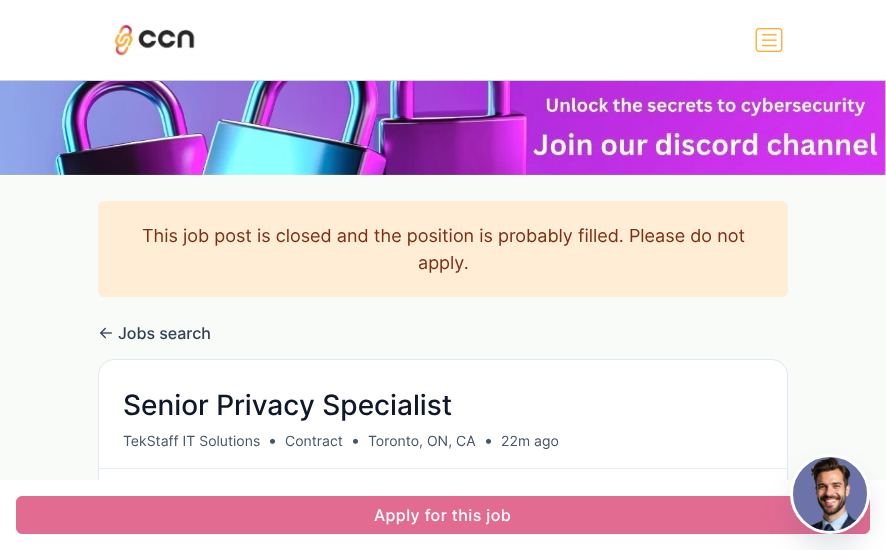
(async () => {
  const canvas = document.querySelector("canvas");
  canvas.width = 886;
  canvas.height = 550;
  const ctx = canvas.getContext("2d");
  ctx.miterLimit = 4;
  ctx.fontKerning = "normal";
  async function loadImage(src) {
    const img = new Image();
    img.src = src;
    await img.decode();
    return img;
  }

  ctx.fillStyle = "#f9fbf9";
  ctx.fillRect(0, 0, 886, 550);
  ctx.fillStyle = "#ffffff";
  ctx.fillRect(0, 0, 886, 80);
  ctx.fillStyle = "#cbd5e1";
  ctx.fillRect(0, 80, 886, 1);
  ctx.drawImage(await loadImage("img/1.png"), 114, 24, 81, 32);
  ctx.drawImage(await loadImage("img/2.png"), 755, 27, 28, 26);
  ctx.drawImage(await loadImage("img/3.png"), 0, 81, 886, 95);
  ctx.fillStyle = "#ffedd5";
  ctx.beginPath();
  ctx.roundRect(98.5, 201.5, 689, 95, 5.5);
  ctx.fill();
  ctx.strokeStyle = "#ffedd5";
  ctx.stroke();
  ctx.drawImage(await loadImage("img/4.png"), 100, 327, 12, 12);
  ctx.fillStyle = "#ffffff";
  ctx.beginPath();
  ctx.roundRect(98.5, 359.5, 689, 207, 15.5);
  ctx.fill();
  ctx.strokeStyle = "#e2e8f0";
  ctx.stroke();
  ctx.fillStyle = "#e8ecf3";
  ctx.fillRect(99, 468, 688, 1);
  ctx.fillStyle = "#ffffff";
  ctx.fillRect(0, 480, 886, 70);
  ctx.fillStyle = "#e26b92";
  ctx.beginPath();
  ctx.roundRect(16.5, 496.5, 853, 37, 5.5);
  ctx.fill();
  ctx.strokeStyle = "#e26b92";
  ctx.stroke();
  ctx.fillStyle = "rgba(84, 95, 111, 0.16)";
  ctx.filter = "blur(12px)";
  ctx.beginPath();
  ctx.roundRect(790, 470, 80, 80, 40);
  ctx.fill();
  ctx.filter = "none";
  ctx.fillStyle = "#6c73a8";
  ctx.beginPath();
  ctx.arc(830, 494, 38.5, 0, Math.PI * 2);
  ctx.fill();
  ctx.strokeStyle = "#ffffff";
  ctx.lineWidth = 3;
  ctx.stroke();
  ctx.drawImage(await loadImage("img/5.png"), 810, 457, 47, 74);
  ctx.font = "18px Inter";
  ctx.fillStyle = "#7c2d12";
  ctx.fillText("This job post is closed and the position is probably filled. Please do not", 142, 242);
  ctx.fillText("apply.", 418, 269);
  ctx.font = "500 16px Inter";
  ctx.fillStyle = "#334155";
  ctx.fillText("Jobs search", 118, 339);
  ctx.font = "500 28px Inter";
  ctx.fillStyle = "#0f172a";
  ctx.fillText("Senior Privacy Specialist", 123, 415);
  ctx.font = "14px Inter";
  ctx.fillStyle = "#475569";
  ctx.fillText("TekStaff IT Solutions", 123, 446);
  ctx.font = "16px Inter";
  ctx.fillText("•", 268, 446);
  ctx.font = "14px Inter";
  ctx.fillText("Contract", 285, 446);
  ctx.font = "16px Inter";
  ctx.fillText("•", 351, 446);
  ctx.font = "14px Inter";
  ctx.fillText("Toronto, ON, CA", 368, 446);
  ctx.font = "16px Inter";
  ctx.fillText("•", 484, 446);
  ctx.font = "14px Inter";
  ctx.fillText("22m ago", 501, 446);
  ctx.letterSpacing = "0.4px";
  ctx.font = "500 16px Inter";
  ctx.fillStyle = "#ffffff";
  ctx.fillText("Apply for this job", 374, 521);
})();
